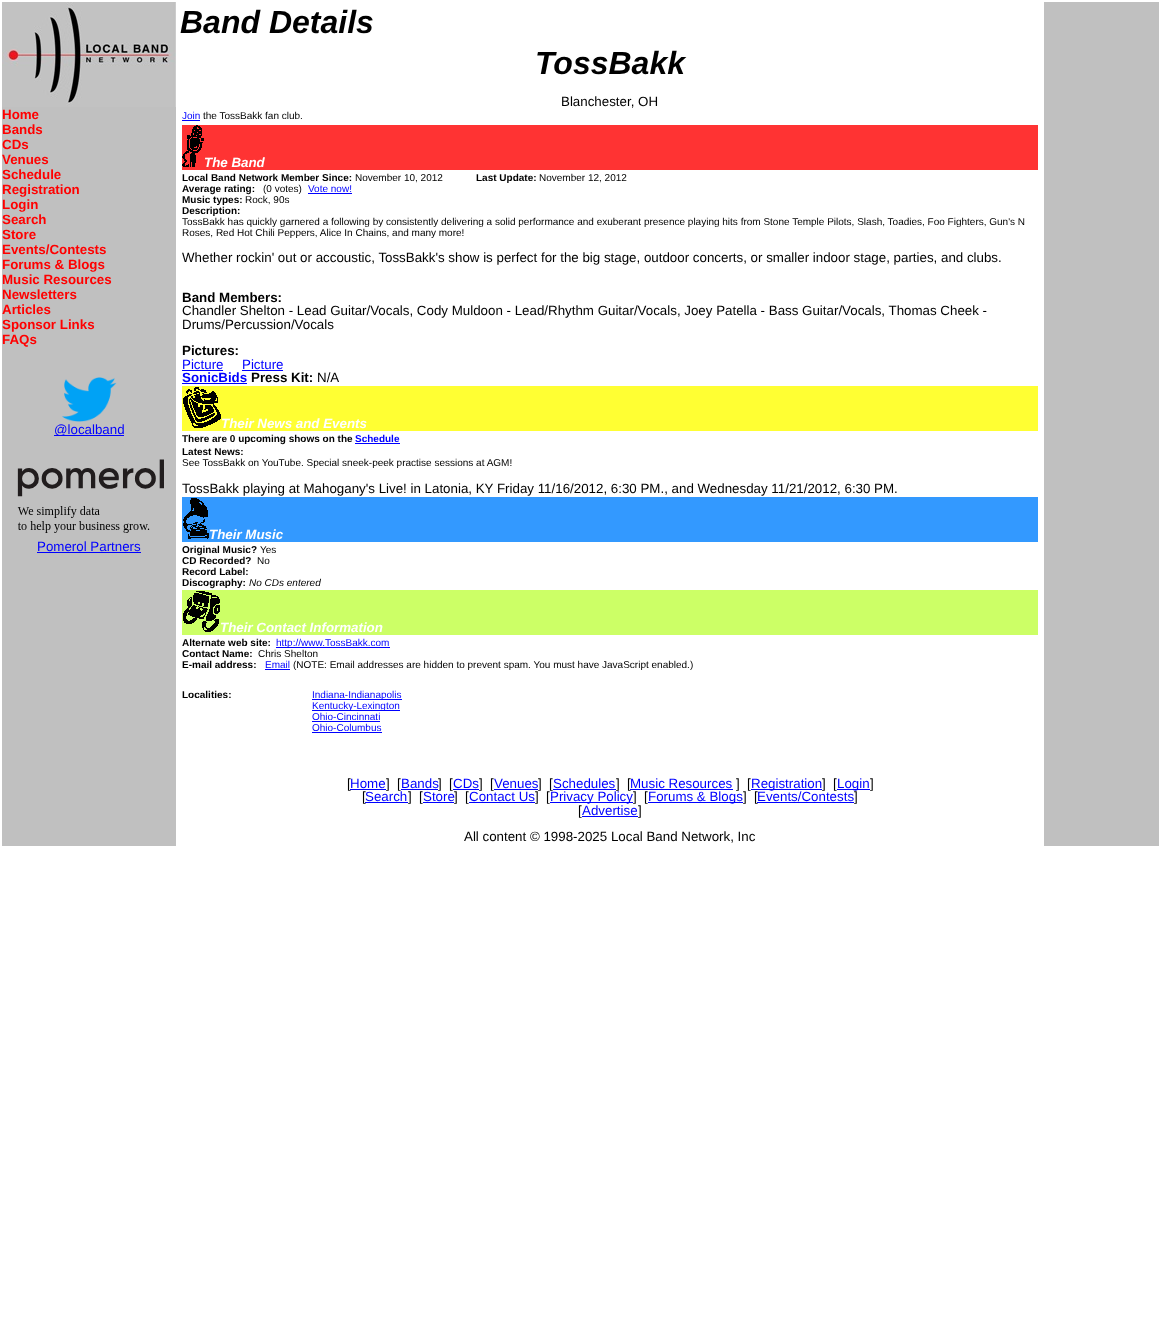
(async () => {
  const canvas = document.querySelector("canvas");
  canvas.width = 1161;
  canvas.height = 1335;
  const ctx = canvas.getContext("2d");
  ctx.miterLimit = 4;
  ctx.fontKerning = "normal";
  async function loadImage(src) {
    const img = new Image();
    img.src = src;
    await img.decode();
    return img;
  }

  ctx.fillStyle = "#ffffff";
  ctx.fillRect(0, 0, 1161, 1335);
  ctx.fillStyle = "#c0c0c0";
  ctx.fillRect(2, 107, 174, 739);
  ctx.drawImage(await loadImage("img/1.png"), 2, 2, 174, 105);
  ctx.drawImage(await loadImage("img/2.png"), 62, 377, 55, 45);
  ctx.fillStyle = "#0000ff";
  ctx.fillRect(54, 435, 70, 1);
  ctx.drawImage(await loadImage("img/3.png"), 17, 459, 147, 74);
  for (const [x, y, w, h, color] of [
    [37, 552, 104, 1, "#0000ff"],
    [182, 120, 18, 1, "#0000ff"],
    [182, 125, 856, 45, "#ff3333"],
  ]) {
    ctx.fillStyle = color;
    ctx.fillRect(x, y, w, h);
  }
  ctx.drawImage(await loadImage("img/4.png"), 182, 125, 22, 42);
  for (const [x, y, w, h, color] of [
    [308, 193, 44, 1, "#0000ff"],
    [182, 370, 41, 1, "#0000ff"],
    [242, 370, 41, 1, "#0000ff"],
    [182, 383, 65, 1, "#0000ff"],
    [182, 386, 856, 45, "#ffff33"],
  ]) {
    ctx.fillStyle = color;
    ctx.fillRect(x, y, w, h);
  }
  ctx.drawImage(await loadImage("img/5.png"), 183, 387, 38, 41);
  ctx.fillStyle = "#0000ff";
  ctx.fillRect(355, 443, 45, 1);
  ctx.fillStyle = "#3399ff";
  ctx.fillRect(182, 497, 856, 45);
  ctx.drawImage(await loadImage("img/6.png"), 183, 498, 26, 41);
  ctx.fillStyle = "#ccff66";
  ctx.fillRect(182, 590, 856, 45);
  ctx.drawImage(await loadImage("img/7.png"), 183, 591, 37, 41);
  for (const [x, y, w, h, color] of [
    [276, 647, 114, 1, "#0000ff"],
    [265, 669, 25, 1, "#0000ff"],
    [312, 699, 90, 1, "#0000ff"],
    [312, 710, 88, 1, "#0000ff"],
    [312, 721, 68, 1, "#0000ff"],
    [312, 732, 70, 1, "#0000ff"],
    [401, 789, 37, 1, "#0000ff"],
    [494, 789, 44, 1, "#0000ff"],
    [751, 789, 71, 1, "#0000ff"],
    [837, 789, 33, 1, "#0000ff"],
    [423, 802, 31, 1, "#0000ff"],
    [550, 802, 83, 1, "#0000ff"],
    [648, 802, 95, 1, "#0000ff"],
    [1044, 2, 115, 844, "#c0c0c0"],
  ]) {
    ctx.fillStyle = color;
    ctx.fillRect(x, y, w, h);
  }
  ctx.font = "bold 13.33px Liberation Sans";
  ctx.fillStyle = "#ff0000";
  for (const [text, x, y] of [
    ["Home", 2, 119],
    ["Bands", 2, 134],
    ["CDs", 2, 149],
    ["Venues", 2, 164],
    ["Schedule", 2, 179],
    ["Registration", 2, 194],
    ["Login", 2, 209],
    ["Search", 2, 224],
    ["Store", 2, 239],
    ["Events/Contests", 2, 254],
    ["Forums & Blogs", 2, 269],
    ["Music Resources", 2, 284],
    ["Newsletters", 2, 299],
    ["Articles", 2, 314],
    ["Sponsor Links", 2, 329],
    ["FAQs", 2, 344],
  ]) {
    ctx.fillText(text, x, y);
  }
  ctx.font = "13.33px Liberation Sans";
  ctx.fillStyle = "#0000ff";
  ctx.fillText("@localband", 54, 434);
  ctx.fillText("Pomerol Partners", 37, 551);
  ctx.font = "italic bold 32px Liberation Sans";
  ctx.fillStyle = "#000000";
  ctx.fillText("Band Details", 180, 33);
  ctx.fillText("TossBakk", 535, 74);
  ctx.font = "13.33px Liberation Sans";
  ctx.fillText("Blanchester, OH", 561, 106);
  ctx.font = "10px Liberation Sans";
  ctx.fillStyle = "#0000ff";
  ctx.fillText("Join", 182, 119);
  ctx.fillStyle = "#000000";
  ctx.fillText("the TossBakk fan club.", 203, 119);
  ctx.font = "italic bold 13.33px Liberation Sans";
  ctx.fillStyle = "#ffffff";
  ctx.fillText("The Band", 204, 167);
  ctx.font = "bold 10px Liberation Sans";
  ctx.fillStyle = "#000000";
  ctx.fillText("Local Band Network Member Since:", 182, 181);
  ctx.font = "10px Liberation Sans";
  ctx.fillText("November 10, 2012", 355, 181);
  ctx.font = "bold 10px Liberation Sans";
  ctx.fillText("Last Update:", 476, 181);
  ctx.font = "10px Liberation Sans";
  ctx.fillText("November 12, 2012", 539, 181);
  ctx.font = "bold 10px Liberation Sans";
  ctx.fillText("Average rating:", 182, 192);
  ctx.font = "10px Liberation Sans";
  ctx.fillText("(0 votes)", 263, 192);
  ctx.fillStyle = "#0000ff";
  ctx.fillText("Vote now!", 308, 192);
  ctx.font = "bold 10px Liberation Sans";
  ctx.fillStyle = "#000000";
  ctx.fillText("Music types:", 182, 203);
  ctx.font = "10px Liberation Sans";
  ctx.fillText("Rock, 90s", 245, 203);
  ctx.font = "bold 10px Liberation Sans";
  ctx.fillText("Description:", 182, 214);
  ctx.font = "10px Liberation Sans";
  ctx.fillText("TossBakk has quickly garnered a following by consistently delivering a solid performance and exuberant presence playing hits from Stone Temple Pilots, Slash, Toadies, Foo Fighters, Gun's N", 182, 225);
  ctx.fillText("Roses, Red Hot Chili Peppers, Alice In Chains, and many more!", 182, 236);
  ctx.font = "13.33px Liberation Sans";
  ctx.fillText("Whether rockin' out or accoustic, TossBakk's show is perfect for the big stage, outdoor concerts, or smaller indoor stage, parties, and clubs.", 182, 262);
  ctx.font = "bold 13.33px Liberation Sans";
  ctx.fillText("Band Members:", 182, 302);
  ctx.font = "13.33px Liberation Sans";
  ctx.fillText("Chandler Shelton - Lead Guitar/Vocals, Cody Muldoon - Lead/Rhythm Guitar/Vocals, Joey Patella - Bass Guitar/Vocals, Thomas Cheek -", 182, 315);
  ctx.fillText("Drums/Percussion/Vocals", 182, 329);
  ctx.font = "bold 13.33px Liberation Sans";
  ctx.fillText("Pictures:", 182, 355);
  ctx.font = "13.33px Liberation Sans";
  ctx.fillStyle = "#0000ff";
  ctx.fillText("Picture", 182, 369);
  ctx.fillText("Picture", 242, 369);
  ctx.font = "bold 13.33px Liberation Sans";
  ctx.fillText("SonicBids", 182, 382);
  ctx.fillStyle = "#000000";
  ctx.fillText("Press Kit:", 251, 382);
  ctx.font = "13.33px Liberation Sans";
  ctx.fillText("N/A", 317, 382);
  ctx.font = "italic bold 13.33px Liberation Sans";
  ctx.fillStyle = "#ffffff";
  ctx.fillText("Their News and Events", 221, 428);
  ctx.font = "bold 10px Liberation Sans";
  ctx.fillStyle = "#000000";
  ctx.fillText("There are 0 upcoming shows on the", 182, 442);
  ctx.fillStyle = "#0000ff";
  ctx.fillText("Schedule", 355, 442);
  ctx.fillStyle = "#000000";
  ctx.fillText("Latest News:", 182, 455);
  ctx.font = "10px Liberation Sans";
  ctx.fillText("See TossBakk on YouTube. Special sneek-peek practise sessions at AGM!", 182, 466);
  ctx.font = "13.33px Liberation Sans";
  ctx.fillText("TossBakk playing at Mahogany's Live! in Latonia, KY Friday 11/16/2012, 6:30 PM., and Wednesday 11/21/2012, 6:30 PM.", 182, 493);
  ctx.font = "italic bold 13.33px Liberation Sans";
  ctx.fillStyle = "#ffffff";
  ctx.fillText("Their Music", 209, 539);
  ctx.font = "bold 10px Liberation Sans";
  ctx.fillStyle = "#000000";
  ctx.fillText("Original Music?", 182, 553);
  ctx.font = "10px Liberation Sans";
  ctx.fillText("Yes", 260, 553);
  ctx.font = "bold 10px Liberation Sans";
  ctx.fillText("CD Recorded?", 182, 564);
  ctx.font = "10px Liberation Sans";
  ctx.fillText("No", 257, 564);
  ctx.font = "bold 10px Liberation Sans";
  ctx.fillText("Record Label:", 182, 575);
  ctx.fillText("Discography:", 182, 586);
  ctx.font = "italic 10px Liberation Sans";
  ctx.fillText("No CDs entered", 249, 586);
  ctx.font = "italic bold 13.33px Liberation Sans";
  ctx.fillStyle = "#ffffff";
  ctx.fillText("Their Contact Information", 220, 632);
  ctx.font = "bold 10px Liberation Sans";
  ctx.fillStyle = "#000000";
  ctx.fillText("Alternate web site:", 182, 646);
  ctx.font = "10px Liberation Sans";
  ctx.fillStyle = "#0000ff";
  ctx.fillText("http://www.TossBakk.com", 276, 646);
  ctx.font = "bold 10px Liberation Sans";
  ctx.fillStyle = "#000000";
  ctx.fillText("Contact Name:", 182, 657);
  ctx.font = "10px Liberation Sans";
  ctx.fillText("Chris Shelton", 258, 657);
  ctx.font = "bold 10px Liberation Sans";
  ctx.fillText("E-mail address:", 182, 668);
  ctx.font = "10px Liberation Sans";
  ctx.fillStyle = "#0000ff";
  ctx.fillText("Email", 265, 668);
  ctx.fillStyle = "#000000";
  ctx.fillText("(NOTE: Email addresses are hidden to prevent spam. You must have JavaScript enabled.)", 293, 668);
  ctx.font = "bold 10px Liberation Sans";
  ctx.fillText("Localities:", 182, 698);
  ctx.font = "10px Liberation Sans";
  ctx.fillStyle = "#0000ff";
  for (const [text, x, y] of [
    ["Indiana-Indianapolis", 312, 698],
    ["Kentucky-Lexington", 312, 709],
    ["Ohio-Cincinnati", 312, 720],
    ["Ohio-Columbus", 312, 731],
  ]) {
    ctx.fillText(text, x, y);
  }
  ctx.font = "13.33px Liberation Sans";
  ctx.fillStyle = "#000000";
  ctx.fillText("[", 347, 788);
  ctx.fillStyle = "#0000ff";
  ctx.fillText("Home", 350, 788);
  ctx.fillRect(350, 789, 36, 1);
  ctx.fillStyle = "#000000";
  ctx.fillText("]  [", 386, 788);
  ctx.fillStyle = "#0000ff";
  ctx.fillText("Bands", 401, 788);
  ctx.fillStyle = "#000000";
  ctx.fillText("]  [", 438, 788);
  ctx.fillStyle = "#0000ff";
  ctx.fillText("CDs", 453, 788);
  ctx.fillRect(453, 789, 26, 1);
  ctx.fillStyle = "#000000";
  ctx.fillText("]  [", 479, 788);
  ctx.fillStyle = "#0000ff";
  ctx.fillText("Venues", 494, 788);
  ctx.fillStyle = "#000000";
  ctx.fillText("]  [", 538, 788);
  ctx.fillStyle = "#0000ff";
  ctx.fillText("Schedules", 553, 788);
  ctx.fillRect(553, 789, 63, 1);
  ctx.fillStyle = "#000000";
  ctx.fillText("]  [", 616, 788);
  ctx.fillStyle = "#0000ff";
  ctx.fillText("Music Resources", 630, 788);
  ctx.fillRect(630, 789, 103, 1);
  ctx.fillStyle = "#000000";
  ctx.fillText("]  [", 736, 788);
  ctx.fillStyle = "#0000ff";
  ctx.fillText("Registration", 751, 788);
  ctx.fillStyle = "#000000";
  ctx.fillText("]  [", 822, 788);
  ctx.fillStyle = "#0000ff";
  ctx.fillText("Login", 837, 788);
  ctx.fillStyle = "#000000";
  ctx.fillText("]", 870, 788);
  ctx.fillText("[", 362, 801);
  ctx.fillStyle = "#0000ff";
  ctx.fillText("Search", 365, 801);
  ctx.fillRect(365, 802, 43, 1);
  ctx.fillStyle = "#000000";
  ctx.fillText("]  [", 408, 801);
  ctx.fillStyle = "#0000ff";
  ctx.fillText("Store", 423, 801);
  ctx.fillStyle = "#000000";
  ctx.fillText("]  [", 454, 801);
  ctx.fillStyle = "#0000ff";
  ctx.fillText("Contact Us", 469, 801);
  ctx.fillRect(469, 802, 66, 1);
  ctx.fillStyle = "#000000";
  ctx.fillText("]  [", 535, 801);
  ctx.fillStyle = "#0000ff";
  ctx.fillText("Privacy Policy", 550, 801);
  ctx.fillStyle = "#000000";
  ctx.fillText("]  [", 633, 801);
  ctx.fillStyle = "#0000ff";
  ctx.fillText("Forums & Blogs", 648, 801);
  ctx.fillStyle = "#000000";
  ctx.fillText("]  [", 743, 801);
  ctx.fillStyle = "#0000ff";
  ctx.fillText("Events/Contests", 757, 801);
  ctx.fillRect(757, 802, 97, 1);
  ctx.fillStyle = "#000000";
  ctx.fillText("]", 854, 801);
  ctx.fillText("[", 578, 815);
  ctx.fillStyle = "#0000ff";
  ctx.fillText("Advertise", 582, 815);
  ctx.fillRect(582, 816, 56, 1);
  ctx.fillStyle = "#000000";
  ctx.fillText("]", 638, 815);
  ctx.fillText("All content © 1998-2025 Local Band Network, Inc", 464, 841);
})();
